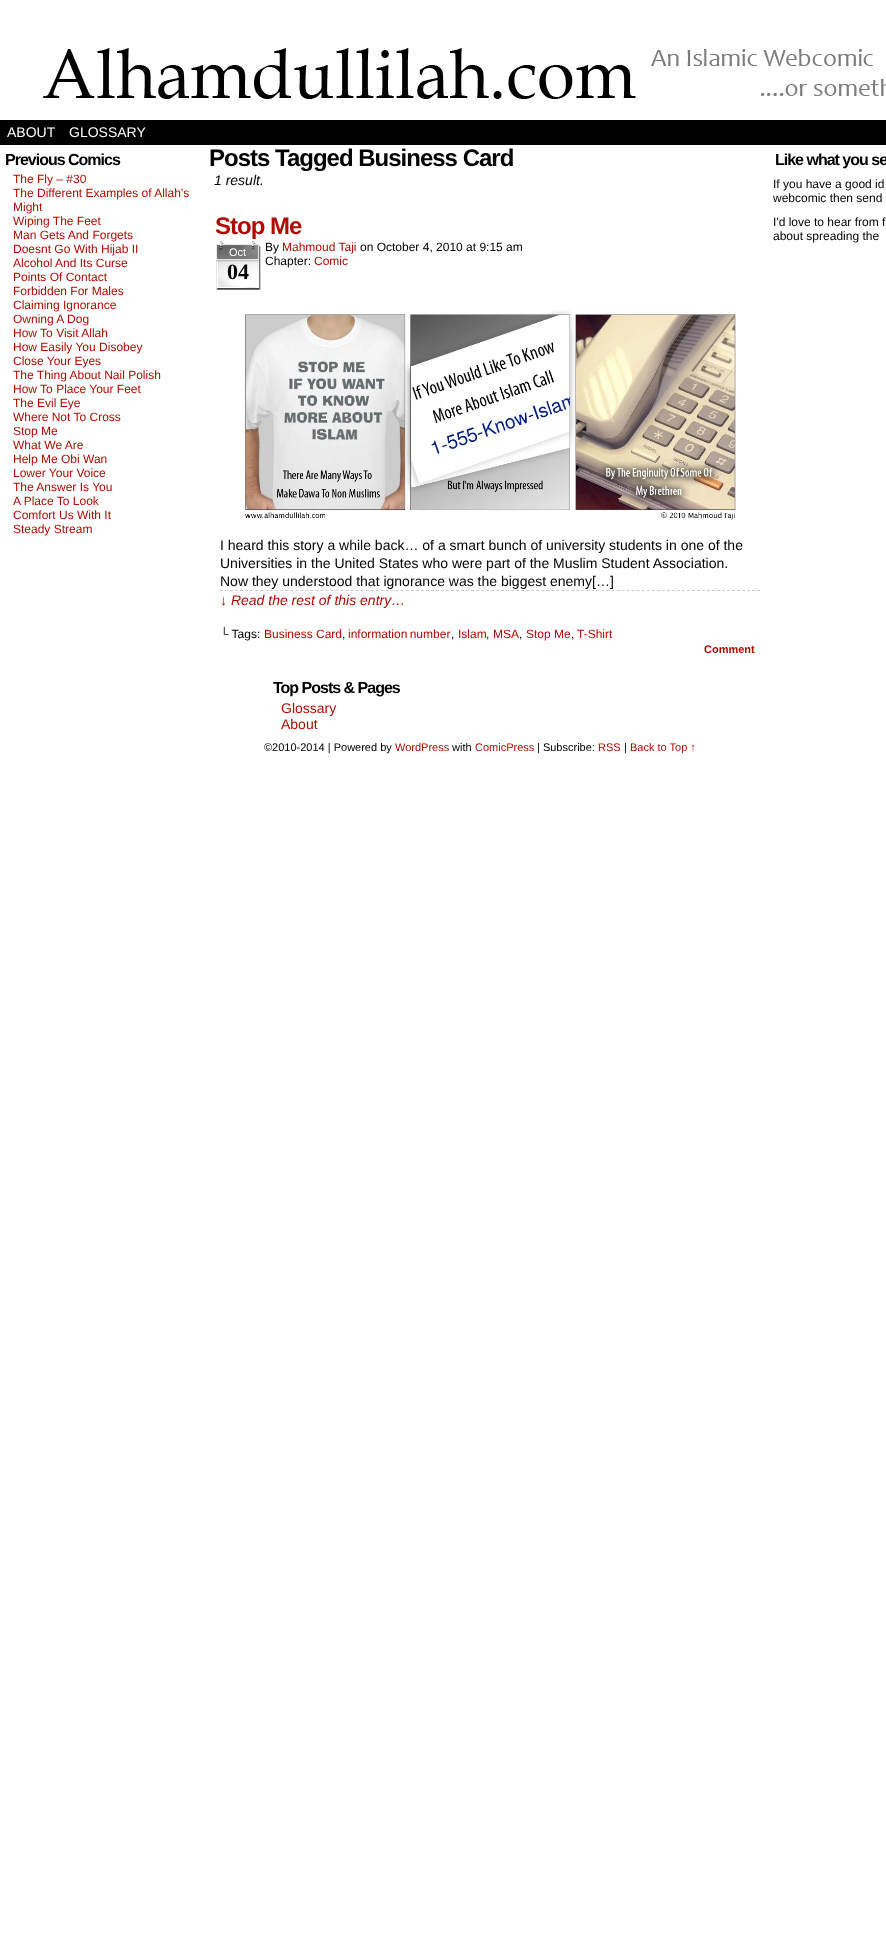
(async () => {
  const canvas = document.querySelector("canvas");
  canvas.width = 886;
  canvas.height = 1953;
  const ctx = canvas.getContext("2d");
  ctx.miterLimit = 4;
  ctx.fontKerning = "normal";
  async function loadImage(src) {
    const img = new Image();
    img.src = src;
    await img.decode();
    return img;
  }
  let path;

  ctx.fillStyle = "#ffffff";
  ctx.fillRect(0, 0, 886, 1953);
  ctx.drawImage(await loadImage("img/1.png"), 40, 48, 846, 52);
  ctx.fillStyle = "#000000";
  ctx.fillRect(0, 120, 886, 25);
  ctx.drawImage(await loadImage("img/2.png"), 216, 241, 45, 49);
  ctx.drawImage(await loadImage("img/3.png"), 244, 310, 494, 210);
  path = new Path2D("M220 590.5H760");
  ctx.strokeStyle = "#cccccc";
  ctx.setLineDash([3, 2.02]);
  ctx.stroke(path);
  ctx.font = "14px Liberation Sans";
  ctx.fillStyle = "#ffffff";
  ctx.fillText("ABOUT", 7, 137);
  ctx.fillText("GLOSSARY", 69, 137);
  ctx.letterSpacing = "-1px";
  ctx.font = "bold 16px Liberation Sans";
  ctx.fillStyle = "#000000";
  ctx.fillText("Previous Comics", 5, 165);
  ctx.letterSpacing = "0px";
  ctx.font = "12px Liberation Sans";
  ctx.fillStyle = "#b00b00";
  for (const [text, x, y] of [
    ["The Fly – #30", 13, 183],
    ["The Different Examples of Allah’s", 13, 197],
    ["Might", 13, 211],
    ["Wiping The Feet", 13, 225],
    ["Man Gets And Forgets", 13, 239],
    ["Doesnt Go With Hijab II", 13, 253],
    ["Alcohol And Its Curse", 13, 267],
    ["Points Of Contact", 13, 281],
    ["Forbidden For Males", 13, 295],
    ["Claiming Ignorance", 13, 309],
    ["Owning A Dog", 13, 323],
    ["How To Visit Allah", 13, 337],
    ["How Easily You Disobey", 13, 351],
    ["Close Your Eyes", 13, 365],
    ["The Thing About Nail Polish", 13, 379],
    ["How To Place Your Feet", 13, 393],
    ["The Evil Eye", 13, 407],
    ["Where Not To Cross", 13, 421],
    ["Stop Me", 13, 435],
    ["What We Are", 13, 449],
    ["Help Me Obi Wan", 13, 463],
    ["Lower Your Voice", 13, 477],
    ["The Answer Is You", 13, 491],
    ["A Place To Look", 13, 505],
    ["Comfort Us With It", 13, 519],
    ["Steady Stream", 13, 533],
  ]) {
    ctx.fillText(text, x, y);
  }
  ctx.letterSpacing = "-1px";
  ctx.font = "bold 24px Liberation Sans";
  ctx.fillStyle = "#000000";
  ctx.fillText("Posts Tagged Business Card", 209, 166);
  ctx.letterSpacing = "0px";
  ctx.font = "italic 14px Liberation Sans";
  ctx.fillText("1 result.", 214, 185);
  ctx.letterSpacing = "-1px";
  ctx.font = "bold 24px Liberation Sans";
  ctx.fillStyle = "#b00b00";
  ctx.fillText("Stop Me", 215, 234);
  ctx.letterSpacing = "0px";
  ctx.font = "11px Liberation Sans";
  ctx.fillStyle = "#ffffff";
  ctx.fillText("Oct", 229, 256);
  ctx.font = "bold 22px Liberation Serif";
  ctx.fillStyle = "#000000";
  ctx.fillText("04", 227, 279);
  ctx.font = "12px Liberation Sans";
  ctx.fillText("By", 265, 251);
  ctx.fillStyle = "#b00b00";
  ctx.fillText("Mahmoud Taji", 282, 251);
  ctx.fillStyle = "#000000";
  ctx.fillText("on October 4, 2010 at 9:15 am", 360, 251);
  ctx.fillText("Chapter:", 265, 265);
  ctx.fillStyle = "#b00b00";
  ctx.fillText("Comic", 314, 265);
  ctx.font = "14px Liberation Sans";
  ctx.fillStyle = "#000000";
  for (const [text, x, y] of [
    ["I heard this story a while back… of a smart bunch of university students in one of the", 220, 550],
    ["Universities in the United States who were part of the Muslim Student Association.", 220, 568],
    ["Now they understood that ignorance was the biggest enemy[…]", 220, 586],
  ]) {
    ctx.fillText(text, x, y);
  }
  ctx.font = "italic 14px Liberation Sans";
  ctx.fillStyle = "#b00b00";
  ctx.fillText("↓ Read the rest of this entry…", 220, 605);
  ctx.font = "12px Liberation Sans";
  ctx.fillStyle = "#000000";
  ctx.fillText("└ Tags:", 220, 638);
  ctx.fillStyle = "#b00b00";
  ctx.fillText("Business Card", 264, 638);
  ctx.fillStyle = "#000000";
  ctx.fillText(",", 342, 638);
  ctx.wordSpacing = "-1px";
  ctx.fillStyle = "#b00b00";
  ctx.fillText("information number", 348, 638);
  ctx.wordSpacing = "0px";
  ctx.fillStyle = "#000000";
  ctx.fillText(",", 451, 638);
  ctx.fillStyle = "#b00b00";
  ctx.fillText("Islam", 458, 638);
  ctx.fillStyle = "#000000";
  ctx.fillText(",", 486, 638);
  ctx.fillStyle = "#b00b00";
  ctx.fillText("MSA", 493, 638);
  ctx.fillStyle = "#000000";
  ctx.fillText(",", 519, 638);
  ctx.fillStyle = "#b00b00";
  ctx.fillText("Stop Me", 526, 638);
  ctx.fillStyle = "#000000";
  ctx.fillText(",", 571, 638);
  ctx.fillStyle = "#b00b00";
  ctx.fillText("T-Shirt", 577, 638);
  ctx.font = "bold 11px Liberation Sans";
  ctx.fillText("Comment", 704, 653);
  ctx.letterSpacing = "-1px";
  ctx.font = "bold 16px Liberation Sans";
  ctx.fillStyle = "#000000";
  ctx.fillText("Like what you se", 775, 165);
  ctx.letterSpacing = "0px";
  ctx.font = "12px Liberation Sans";
  for (const [text, x, y] of [
    ["If you have a good id", 773, 188],
    ["webcomic then send", 773, 202],
    ["I'd love to hear from f", 773, 226],
    ["about spreading the", 773, 240],
  ]) {
    ctx.fillText(text, x, y);
  }
  ctx.letterSpacing = "-1px";
  ctx.font = "bold 16px Liberation Sans";
  ctx.fillText("Top Posts & Pages", 273, 693);
  ctx.letterSpacing = "0px";
  ctx.font = "14px Liberation Sans";
  ctx.fillStyle = "#b00b00";
  ctx.fillText("Glossary", 281, 713);
  ctx.fillText("About", 281, 729);
  ctx.font = "11px Liberation Sans";
  ctx.fillStyle = "#000000";
  ctx.fillText("©2010-2014 | Powered by", 264, 751);
  ctx.fillStyle = "#b00b00";
  ctx.fillText("WordPress", 395, 751);
  ctx.fillStyle = "#000000";
  ctx.fillText("with", 452, 751);
  ctx.fillStyle = "#b00b00";
  ctx.fillText("ComicPress", 475, 751);
  ctx.fillStyle = "#000000";
  ctx.fillText("| Subscribe:", 537, 751);
  ctx.fillStyle = "#b00b00";
  ctx.fillText("RSS", 598, 751);
  ctx.fillStyle = "#000000";
  ctx.fillText("|", 624, 751);
  ctx.fillStyle = "#b00b00";
  ctx.fillText("Back to Top ↑", 630, 751);
})();
